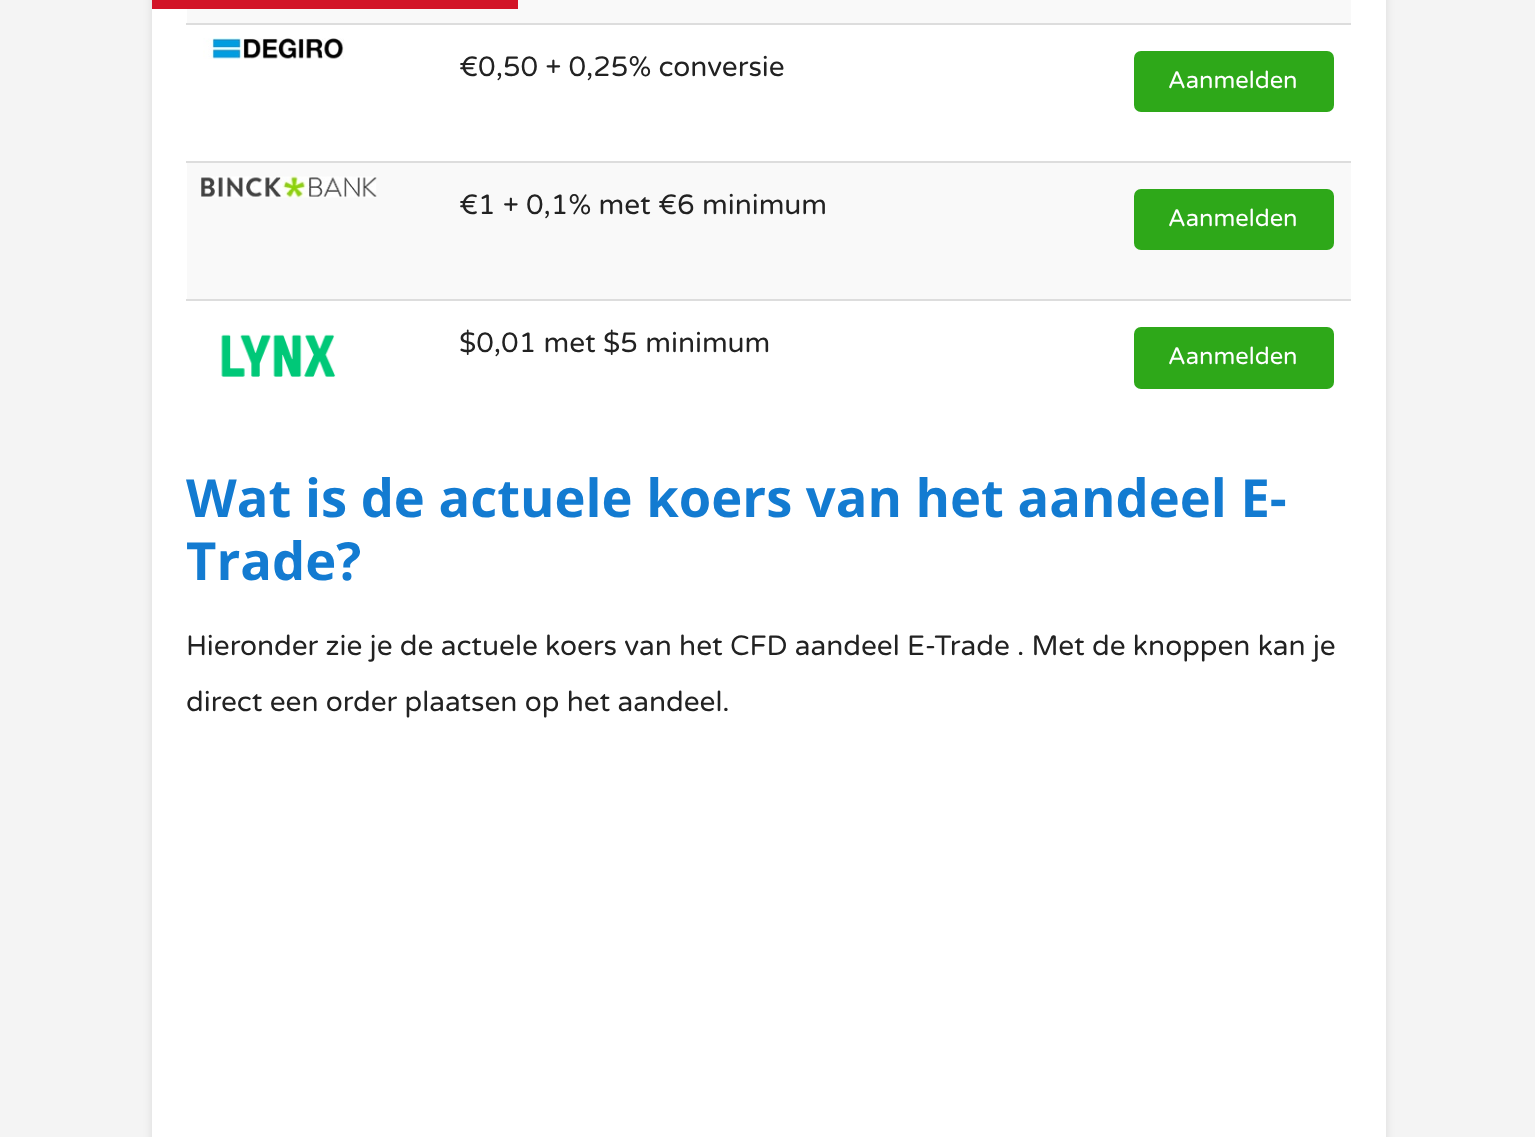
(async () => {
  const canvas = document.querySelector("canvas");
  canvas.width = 1535;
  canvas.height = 1137;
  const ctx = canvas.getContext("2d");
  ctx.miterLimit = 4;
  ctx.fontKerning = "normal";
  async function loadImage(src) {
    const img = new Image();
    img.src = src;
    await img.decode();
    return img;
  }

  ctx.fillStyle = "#f4f4f4";
  ctx.fillRect(0, 0, 1535, 1137);
  ctx.fillStyle = "rgba(0, 0, 0, 0.1)";
  ctx.filter = "blur(5px)";
  ctx.beginPath();
  ctx.rect(152, -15, 1234, 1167);
  ctx.fill();
  ctx.filter = "none";
  for (const [x, y, w, h, color] of [
    [152, 0, 1234, 1137, "#ffffff"],
    [187, 0, 1164, 23, "#f9f9f9"],
    [152, 0, 366, 9, "#d21427"],
  ]) {
    ctx.fillStyle = color;
    ctx.fillRect(x, y, w, h);
  }
  ctx.drawImage(await loadImage("img/1.png"), 203, 38, 141, 22);
  ctx.fillStyle = "#dddddd";
  ctx.fillRect(186, 23, 1165, 2);
  ctx.fillStyle = "#2ea819";
  ctx.beginPath();
  ctx.roundRect(1134, 51, 200, 61, 7);
  ctx.fill();
  ctx.fillStyle = "#f9f9f9";
  ctx.fillRect(187, 163, 1164, 136);
  ctx.drawImage(await loadImage("img/2.png"), 201, 176, 176, 22);
  ctx.fillStyle = "#dddddd";
  ctx.fillRect(186, 161, 1165, 2);
  ctx.fillStyle = "#2ea819";
  ctx.beginPath();
  ctx.roundRect(1134, 189, 200, 61, 7);
  ctx.fill();
  ctx.drawImage(await loadImage("img/3.png"), 221, 334, 115, 43);
  ctx.fillStyle = "#dddddd";
  ctx.fillRect(186, 299, 1165, 2);
  ctx.fillStyle = "#2ea819";
  ctx.beginPath();
  ctx.roundRect(1134, 327, 200, 62, 7);
  ctx.fill();
  ctx.font = "28px Varela Round";
  ctx.fillStyle = "#222222";
  ctx.fillText("€0,50 + 0,25% conversie", 459, 76);
  ctx.font = "23.75px Varela Round";
  ctx.fillStyle = "#ffffff";
  ctx.fillText("Aanmelden", 1168, 88);
  ctx.font = "28px Varela Round";
  ctx.fillStyle = "#222222";
  ctx.fillText("€1 + 0,1% met €6 minimum", 459, 214);
  ctx.font = "23.75px Varela Round";
  ctx.fillStyle = "#ffffff";
  ctx.fillText("Aanmelden", 1168, 226);
  ctx.font = "28px Varela Round";
  ctx.fillStyle = "#222222";
  ctx.fillText("$0,01 met $5 minimum", 459, 352);
  ctx.font = "23.75px Varela Round";
  ctx.fillStyle = "#ffffff";
  ctx.fillText("Aanmelden", 1168, 364);
  ctx.font = "bold 52.5px Open Sans";
  ctx.fillStyle = "#137bd1";
  ctx.fillText("Wat is de actuele koers van het aandeel E-", 186, 517);
  ctx.fillText("Trade?", 186, 580);
  ctx.font = "28px Varela Round";
  ctx.fillStyle = "#222222";
  ctx.fillText("Hieronder zie je de actuele koers van het CFD aandeel E-Trade . Met de knoppen kan je", 186, 655);
  ctx.fillText("direct een order plaatsen op het aandeel.", 186, 711);
})();
